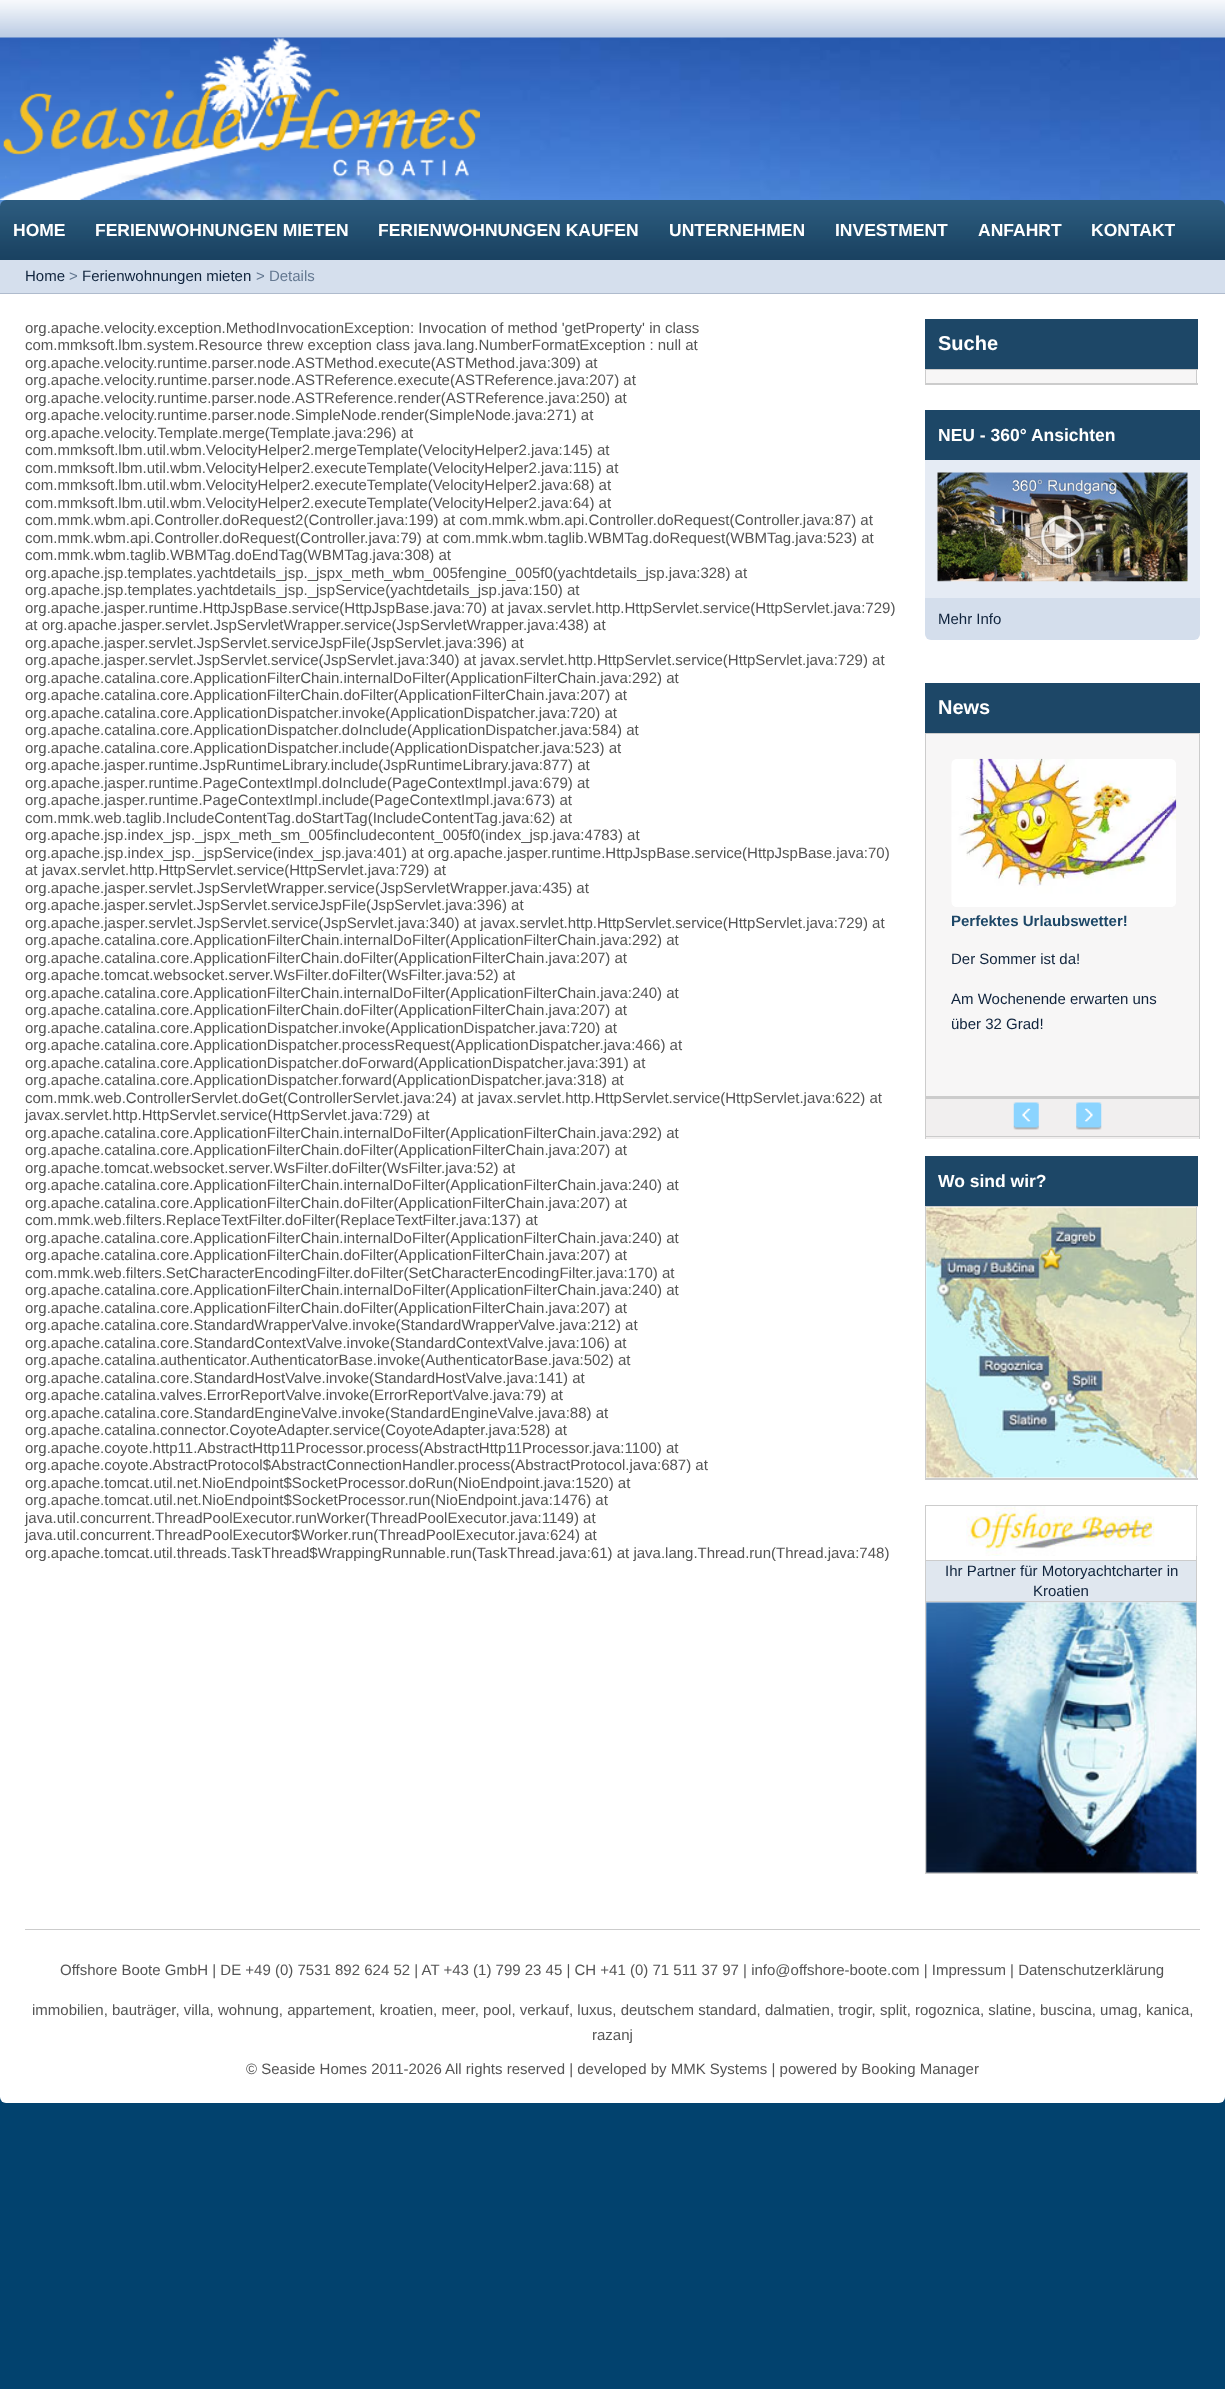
(async () => {
  const canvas = document.querySelector("canvas");
  canvas.width = 1225;
  canvas.height = 2389;
  const ctx = canvas.getContext("2d");
  ctx.miterLimit = 4;
  ctx.fontKerning = "normal";
  async function loadImage(src) {
    const img = new Image();
    img.src = src;
    await img.decode();
    return img;
  }

  ctx.fillStyle = "#02426e";
  ctx.fillRect(0, 0, 1225, 2389);
  ctx.drawImage(await loadImage("img/1.png"), 0, 37, 1225, 170);
  ctx.drawImage(await loadImage("img/2.png"), 0, 0, 1225, 38);
  ctx.drawImage(await loadImage("img/3.png"), 0, 37, 480, 163);
  ctx.drawImage(await loadImage("img/4.png"), 0, 200, 1225, 60);
  ctx.fillStyle = "#d5dfed";
  ctx.fillRect(0, 260, 1225, 33);
  ctx.fillStyle = "#afbbcd";
  ctx.fillRect(0, 293, 1225, 1);
  ctx.fillStyle = "#ffffff";
  ctx.beginPath();
  ctx.roundRect(0, 294, 1225, 1809, [0, 0, 6, 6]);
  ctx.fill();
  for (const [x, y, w, h, color] of [
    [925, 319, 273, 50, "#1d4767"],
    [926, 370, 270, 13, "#f7f6f6"],
    [925, 369, 273, 1, "#cccccc"],
    [1196, 369, 1, 16, "#cccccc"],
    [925, 383, 273, 2, "#cccccc"],
    [925, 369, 1, 16, "#cccccc"],
    [925, 410, 275, 50, "#1d4767"],
    [925, 460, 275, 138, "#e5ebf4"],
  ]) {
    ctx.fillStyle = color;
    ctx.fillRect(x, y, w, h);
  }
  ctx.drawImage(await loadImage("img/5.png"), 937, 472, 251, 110);
  ctx.fillStyle = "#d4deec";
  ctx.beginPath();
  ctx.roundRect(925, 598, 275, 42, [0, 0, 6, 6]);
  ctx.fill();
  ctx.fillStyle = "#1d4767";
  ctx.fillRect(925, 683, 275, 50);
  ctx.fillStyle = "#f1efef";
  ctx.fillRect(926, 1099, 273, 40);
  ctx.save();
  ctx.beginPath();
  ctx.rect(925, 683, 275, 456);
  ctx.clip();
  ctx.strokeStyle = "#cccccc";
  ctx.strokeRect(925.5, 733.5, 274, 422);
  ctx.restore();
  for (const [x, y, w, h, color] of [
    [926, 1136, 273, 1, "#cccccc"],
    [926, 734, 273, 362, "#f7f6f6"],
    [926, 1096, 273, 3, "#cccccc"],
  ]) {
    ctx.fillStyle = color;
    ctx.fillRect(x, y, w, h);
  }
  ctx.drawImage(await loadImage("img/6.png"), 951, 758, 226, 149);
  ctx.drawImage(await loadImage("img/7.png"), 1013, 1102, 26, 28);
  ctx.drawImage(await loadImage("img/8.png"), 1076, 1102, 26, 28);
  for (const [x, y, w, h, color] of [
    [925, 1156, 273, 50, "#1d4767"],
    [925, 1206, 273, 1, "#cccccc"],
    [1196, 1206, 1, 274, "#cccccc"],
    [925, 1478, 273, 2, "#cccccc"],
    [925, 1206, 1, 274, "#cccccc"],
  ]) {
    ctx.fillStyle = color;
    ctx.fillRect(x, y, w, h);
  }
  ctx.drawImage(await loadImage("img/9.png"), 926, 1207, 271, 271);
  for (const [x, y, w, h, color] of [
    [925, 1505, 273, 1, "#cccccc"],
    [1196, 1505, 1, 369, "#cccccc"],
    [925, 1871, 273, 3, "#cccccc"],
    [925, 1505, 1, 369, "#cccccc"],
  ]) {
    ctx.fillStyle = color;
    ctx.fillRect(x, y, w, h);
  }
  ctx.drawImage(await loadImage("img/10.png"), 966, 1506, 231, 50);
  for (const [x, y, w, h, color] of [
    [926, 1561, 270, 42, "#e0e7ef"],
    [926, 1560, 270, 1, "#cccccc"],
    [926, 1601, 270, 1, "#cccccc"],
  ]) {
    ctx.fillStyle = color;
    ctx.fillRect(x, y, w, h);
  }
  ctx.drawImage(await loadImage("img/11.png"), 926, 1602, 271, 271);
  ctx.fillRect(25, 1929, 1175, 1);
  ctx.font = "bold 17.5px Liberation Sans";
  ctx.fillStyle = "#ffffff";
  for (const [text, x, y] of [
    ["HOME", 13, 236],
    ["FERIENWOHNUNGEN MIETEN", 95, 236],
    ["FERIENWOHNUNGEN KAUFEN", 378, 236],
    ["UNTERNEHMEN", 669, 236],
    ["INVESTMENT", 835, 236],
    ["ANFAHRT", 978, 236],
    ["KONTAKT", 1091, 236],
  ]) {
    ctx.fillText(text, x, y);
  }
  ctx.font = "15px Liberation Sans";
  ctx.fillStyle = "#0f233c";
  ctx.fillText("Home", 25, 281);
  ctx.fillStyle = "#647891";
  ctx.fillText(">", 69, 281);
  ctx.fillStyle = "#0f233c";
  ctx.fillText("Ferienwohnungen mieten", 82, 281);
  ctx.fillStyle = "#647891";
  ctx.fillText("> Details", 256, 281);
  ctx.fillStyle = "#555555";
  for (const [text, x, y] of [
    ["org.apache.velocity.exception.MethodInvocationException: Invocation of method 'getProperty' in class", 25, 333],
    ["com.mmksoft.lbm.system.Resource threw exception class java.lang.NumberFormatException : null at", 25, 350],
    ["org.apache.velocity.runtime.parser.node.ASTMethod.execute(ASTMethod.java:309) at", 25, 368],
    ["org.apache.velocity.runtime.parser.node.ASTReference.execute(ASTReference.java:207) at", 25, 385],
    ["org.apache.velocity.runtime.parser.node.ASTReference.render(ASTReference.java:250) at", 25, 403],
    ["org.apache.velocity.runtime.parser.node.SimpleNode.render(SimpleNode.java:271) at", 25, 420],
    ["org.apache.velocity.Template.merge(Template.java:296) at", 25, 438],
    ["com.mmksoft.lbm.util.wbm.VelocityHelper2.mergeTemplate(VelocityHelper2.java:145) at", 25, 455],
    ["com.mmksoft.lbm.util.wbm.VelocityHelper2.executeTemplate(VelocityHelper2.java:115) at", 25, 473],
    ["com.mmksoft.lbm.util.wbm.VelocityHelper2.executeTemplate(VelocityHelper2.java:68) at", 25, 490],
    ["com.mmksoft.lbm.util.wbm.VelocityHelper2.executeTemplate(VelocityHelper2.java:64) at", 25, 508],
    ["com.mmk.wbm.api.Controller.doRequest2(Controller.java:199) at com.mmk.wbm.api.Controller.doRequest(Controller.java:87) at", 25, 525],
    ["com.mmk.wbm.api.Controller.doRequest(Controller.java:79) at com.mmk.wbm.taglib.WBMTag.doRequest(WBMTag.java:523) at", 25, 543],
    ["com.mmk.wbm.taglib.WBMTag.doEndTag(WBMTag.java:308) at", 25, 560],
    ["org.apache.jsp.templates.yachtdetails_jsp._jspx_meth_wbm_005fengine_005f0(yachtdetails_jsp.java:328) at", 25, 578],
    ["org.apache.jsp.templates.yachtdetails_jsp._jspService(yachtdetails_jsp.java:150) at", 25, 595],
    ["org.apache.jasper.runtime.HttpJspBase.service(HttpJspBase.java:70) at javax.servlet.http.HttpServlet.service(HttpServlet.java:729)", 25, 613],
    ["at org.apache.jasper.servlet.JspServletWrapper.service(JspServletWrapper.java:438) at", 25, 630],
    ["org.apache.jasper.servlet.JspServlet.serviceJspFile(JspServlet.java:396) at", 25, 648],
    ["org.apache.jasper.servlet.JspServlet.service(JspServlet.java:340) at javax.servlet.http.HttpServlet.service(HttpServlet.java:729) at", 25, 665],
    ["org.apache.catalina.core.ApplicationFilterChain.internalDoFilter(ApplicationFilterChain.java:292) at", 25, 683],
    ["org.apache.catalina.core.ApplicationFilterChain.doFilter(ApplicationFilterChain.java:207) at", 25, 700],
    ["org.apache.catalina.core.ApplicationDispatcher.invoke(ApplicationDispatcher.java:720) at", 25, 718],
    ["org.apache.catalina.core.ApplicationDispatcher.doInclude(ApplicationDispatcher.java:584) at", 25, 735],
    ["org.apache.catalina.core.ApplicationDispatcher.include(ApplicationDispatcher.java:523) at", 25, 753],
    ["org.apache.jasper.runtime.JspRuntimeLibrary.include(JspRuntimeLibrary.java:877) at", 25, 770],
    ["org.apache.jasper.runtime.PageContextImpl.doInclude(PageContextImpl.java:679) at", 25, 788],
    ["org.apache.jasper.runtime.PageContextImpl.include(PageContextImpl.java:673) at", 25, 805],
    ["com.mmk.web.taglib.IncludeContentTag.doStartTag(IncludeContentTag.java:62) at", 25, 823],
    ["org.apache.jsp.index_jsp._jspx_meth_sm_005fincludecontent_005f0(index_jsp.java:4783) at", 25, 840],
    ["org.apache.jsp.index_jsp._jspService(index_jsp.java:401) at org.apache.jasper.runtime.HttpJspBase.service(HttpJspBase.java:70)", 25, 858],
    ["at javax.servlet.http.HttpServlet.service(HttpServlet.java:729) at", 25, 875],
    ["org.apache.jasper.servlet.JspServletWrapper.service(JspServletWrapper.java:435) at", 25, 893],
    ["org.apache.jasper.servlet.JspServlet.serviceJspFile(JspServlet.java:396) at", 25, 910],
    ["org.apache.jasper.servlet.JspServlet.service(JspServlet.java:340) at javax.servlet.http.HttpServlet.service(HttpServlet.java:729) at", 25, 928],
    ["org.apache.catalina.core.ApplicationFilterChain.internalDoFilter(ApplicationFilterChain.java:292) at", 25, 945],
    ["org.apache.catalina.core.ApplicationFilterChain.doFilter(ApplicationFilterChain.java:207) at", 25, 963],
    ["org.apache.tomcat.websocket.server.WsFilter.doFilter(WsFilter.java:52) at", 25, 980],
    ["org.apache.catalina.core.ApplicationFilterChain.internalDoFilter(ApplicationFilterChain.java:240) at", 25, 998],
    ["org.apache.catalina.core.ApplicationFilterChain.doFilter(ApplicationFilterChain.java:207) at", 25, 1015],
    ["org.apache.catalina.core.ApplicationDispatcher.invoke(ApplicationDispatcher.java:720) at", 25, 1033],
    ["org.apache.catalina.core.ApplicationDispatcher.processRequest(ApplicationDispatcher.java:466) at", 25, 1050],
    ["org.apache.catalina.core.ApplicationDispatcher.doForward(ApplicationDispatcher.java:391) at", 25, 1068],
    ["org.apache.catalina.core.ApplicationDispatcher.forward(ApplicationDispatcher.java:318) at", 25, 1085],
    ["com.mmk.web.ControllerServlet.doGet(ControllerServlet.java:24) at javax.servlet.http.HttpServlet.service(HttpServlet.java:622) at", 25, 1103],
    ["javax.servlet.http.HttpServlet.service(HttpServlet.java:729) at", 25, 1120],
    ["org.apache.catalina.core.ApplicationFilterChain.internalDoFilter(ApplicationFilterChain.java:292) at", 25, 1138],
    ["org.apache.catalina.core.ApplicationFilterChain.doFilter(ApplicationFilterChain.java:207) at", 25, 1155],
    ["org.apache.tomcat.websocket.server.WsFilter.doFilter(WsFilter.java:52) at", 25, 1173],
    ["org.apache.catalina.core.ApplicationFilterChain.internalDoFilter(ApplicationFilterChain.java:240) at", 25, 1190],
    ["org.apache.catalina.core.ApplicationFilterChain.doFilter(ApplicationFilterChain.java:207) at", 25, 1208],
    ["com.mmk.web.filters.ReplaceTextFilter.doFilter(ReplaceTextFilter.java:137) at", 25, 1225],
    ["org.apache.catalina.core.ApplicationFilterChain.internalDoFilter(ApplicationFilterChain.java:240) at", 25, 1243],
    ["org.apache.catalina.core.ApplicationFilterChain.doFilter(ApplicationFilterChain.java:207) at", 25, 1260],
    ["com.mmk.web.filters.SetCharacterEncodingFilter.doFilter(SetCharacterEncodingFilter.java:170) at", 25, 1278],
    ["org.apache.catalina.core.ApplicationFilterChain.internalDoFilter(ApplicationFilterChain.java:240) at", 25, 1295],
    ["org.apache.catalina.core.ApplicationFilterChain.doFilter(ApplicationFilterChain.java:207) at", 25, 1313],
    ["org.apache.catalina.core.StandardWrapperValve.invoke(StandardWrapperValve.java:212) at", 25, 1330],
    ["org.apache.catalina.core.StandardContextValve.invoke(StandardContextValve.java:106) at", 25, 1348],
    ["org.apache.catalina.authenticator.AuthenticatorBase.invoke(AuthenticatorBase.java:502) at", 25, 1365],
    ["org.apache.catalina.core.StandardHostValve.invoke(StandardHostValve.java:141) at", 25, 1383],
    ["org.apache.catalina.valves.ErrorReportValve.invoke(ErrorReportValve.java:79) at", 25, 1400],
    ["org.apache.catalina.core.StandardEngineValve.invoke(StandardEngineValve.java:88) at", 25, 1418],
    ["org.apache.catalina.connector.CoyoteAdapter.service(CoyoteAdapter.java:528) at", 25, 1435],
    ["org.apache.coyote.http11.AbstractHttp11Processor.process(AbstractHttp11Processor.java:1100) at", 25, 1453],
    ["org.apache.coyote.AbstractProtocol$AbstractConnectionHandler.process(AbstractProtocol.java:687) at", 25, 1470],
    ["org.apache.tomcat.util.net.NioEndpoint$SocketProcessor.doRun(NioEndpoint.java:1520) at", 25, 1488],
    ["org.apache.tomcat.util.net.NioEndpoint$SocketProcessor.run(NioEndpoint.java:1476) at", 25, 1505],
    ["java.util.concurrent.ThreadPoolExecutor.runWorker(ThreadPoolExecutor.java:1149) at", 25, 1523],
    ["java.util.concurrent.ThreadPoolExecutor$Worker.run(ThreadPoolExecutor.java:624) at", 25, 1540],
  ]) {
    ctx.fillText(text, x, y);
  }
  ctx.save();
  ctx.beginPath();
  ctx.rect(25, 319, 875, 1242);
  ctx.clip();
  ctx.fillText("org.apache.tomcat.util.threads.TaskThread$WrappingRunnable.run(TaskThread.java:61) at java.lang.Thread.run(Thread.java:748)", 25, 1558);
  ctx.restore();
  ctx.font = "bold 20px Liberation Sans";
  ctx.fillStyle = "#ffffff";
  ctx.fillText("Suche", 938, 350);
  ctx.font = "bold 17.5px Liberation Sans";
  ctx.fillText("NEU - 360° Ansichten", 938, 441);
  ctx.font = "15px Liberation Sans";
  ctx.fillStyle = "#0f233c";
  ctx.fillText("Mehr Info", 938, 624);
  ctx.font = "bold 20px Liberation Sans";
  ctx.fillStyle = "#ffffff";
  ctx.fillText("News", 938, 714);
  ctx.font = "bold 15px Liberation Sans";
  ctx.fillStyle = "#1d4767";
  ctx.fillText("Perfektes Urlaubswetter!", 951, 926);
  ctx.font = "15px Liberation Sans";
  ctx.fillStyle = "#0f233c";
  for (const [text, x, y] of [
    ["Der Sommer ist da!", 951, 964],
    ["Am Wochenende erwarten uns", 951, 1004],
    ["über 32 Grad!", 951, 1029],
  ]) {
    ctx.fillText(text, x, y);
  }
  ctx.font = "bold 17.5px Liberation Sans";
  ctx.fillStyle = "#ffffff";
  ctx.fillText("Wo sind wir?", 938, 1187);
  ctx.font = "15px Liberation Sans";
  ctx.fillStyle = "#0f233c";
  ctx.fillText("Ihr Partner für Motoryachtcharter in", 945, 1576);
  ctx.fillText("Kroatien", 1033, 1596);
  ctx.fillStyle = "#555555";
  for (const [text, x, y] of [
    ["Offshore Boote GmbH | DE +49 (0) 7531 892 624 52 | AT +43 (1) 799 23 45 | CH +41 (0) 71 511 37 97 | info@offshore-boote.com | Impressum | Datenschutzerklärung", 60, 1975],
    ["immobilien, bauträger, villa, wohnung, appartement, kroatien, meer, pool, verkauf, luxus, deutschem standard, dalmatien, trogir, split, rogoznica, slatine, buscina, umag, kanica,", 32, 2015],
    ["razanj", 592, 2040],
    ["© Seaside Homes 2011-2026", 246, 2074],
    ["All rights reserved | developed by MMK Systems | powered by Booking Manager", 445, 2074],
  ]) {
    ctx.fillText(text, x, y);
  }
})();
